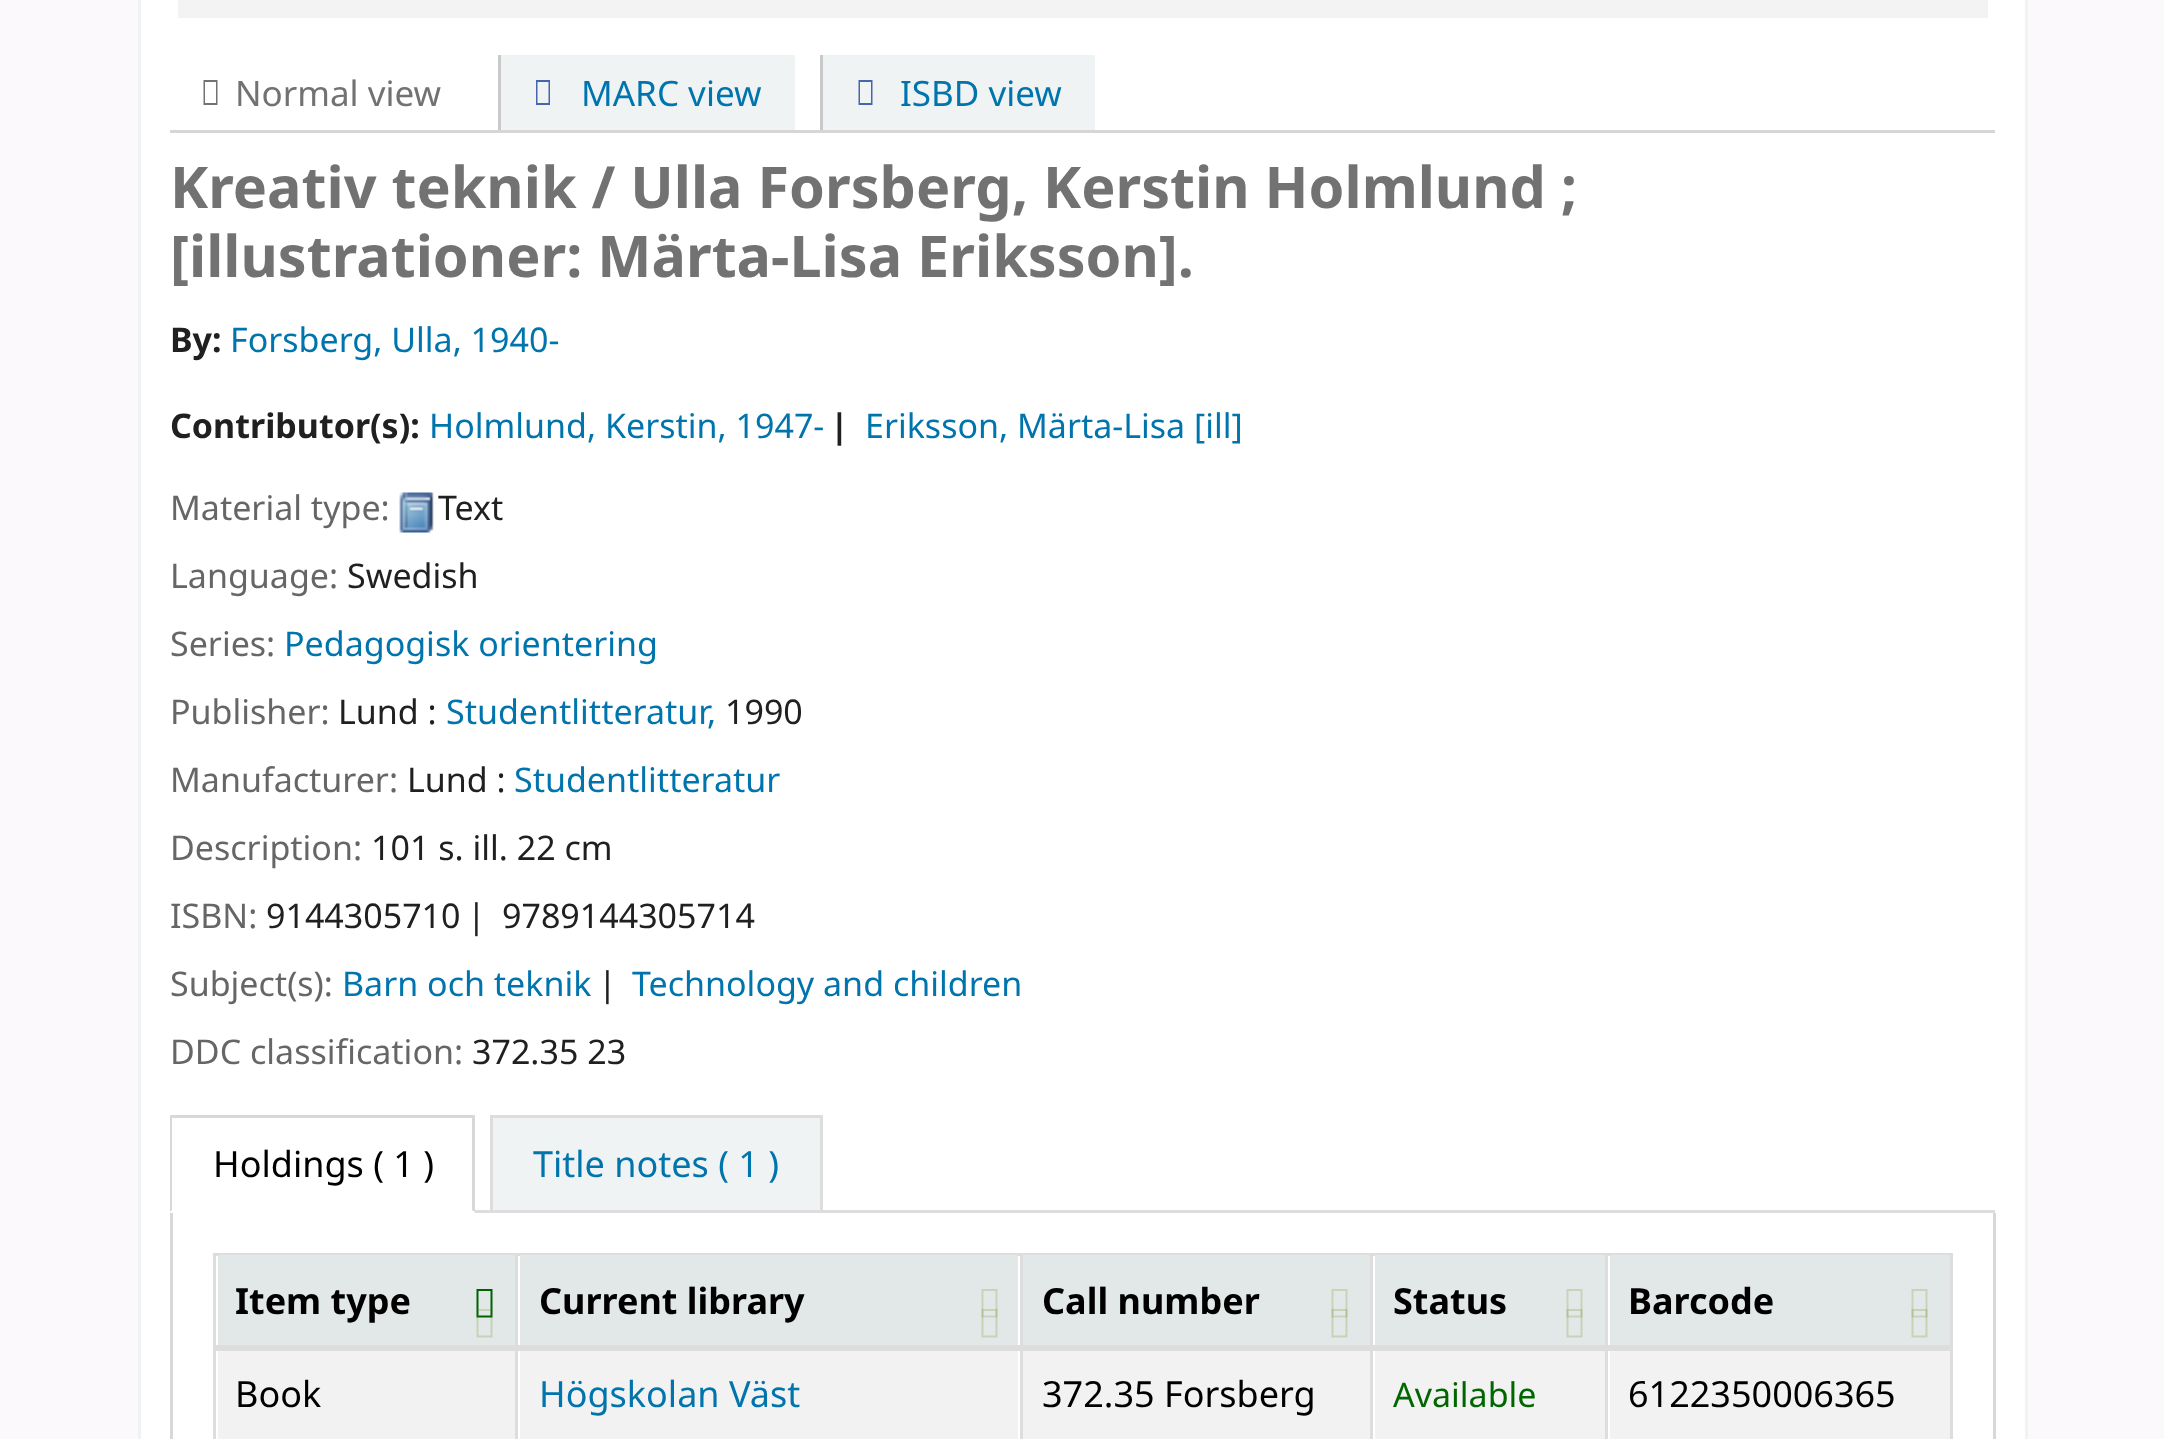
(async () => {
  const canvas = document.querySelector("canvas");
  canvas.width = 2164;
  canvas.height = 1439;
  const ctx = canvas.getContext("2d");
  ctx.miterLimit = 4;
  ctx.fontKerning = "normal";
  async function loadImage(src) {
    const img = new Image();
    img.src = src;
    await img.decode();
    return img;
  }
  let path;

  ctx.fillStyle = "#fcf9fc";
  ctx.fillRect(0, 0, 2164, 1439);
  ctx.fillStyle = "#ffffff";
  ctx.beginPath();
  ctx.rect(139.5, -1.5, 1887, 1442);
  ctx.fill();
  ctx.strokeStyle = "#f0f3f3";
  ctx.lineWidth = 3;
  ctx.stroke();
  ctx.fillStyle = "#f3f3f3";
  ctx.fillRect(178, 0, 1810, 18);
  ctx.fillStyle = "#d6d6d6";
  ctx.fillRect(170, 130, 1825, 3);
  ctx.fillStyle = "#727272";
  path = new Path2D("M203.5 105V80H217.5V105ZM205 103H216V82H205Z");
  ctx.fill(path);
  ctx.fillStyle = "#f0f3f3";
  ctx.fillRect(501, 55, 294, 75);
  ctx.fillStyle = "#c9c9c9";
  ctx.fillRect(498, 55, 3, 75);
  ctx.fillStyle = "#4466ae";
  path = new Path2D("M536 105V80H550V105ZM537.5 103H548.5V82H537.5Z");
  ctx.fill(path);
  ctx.fillStyle = "#f0f3f3";
  ctx.fillRect(823, 55, 272, 75);
  ctx.fillStyle = "#c9c9c9";
  ctx.fillRect(820, 55, 3, 75);
  ctx.fillStyle = "#4466ae";
  path = new Path2D("M858.5 105V80H872.5V105ZM860 103H871V82H860Z");
  ctx.fill(path);
  ctx.drawImage(await loadImage("img/1.png"), 399, 492, 35, 41);
  ctx.fillStyle = "#dddddd";
  ctx.fillRect(475, 1210, 1520, 3);
  ctx.fillStyle = "#d8d8d8";
  ctx.fillRect(170, 1115, 305, 3);
  path = new Path2D("M475 1115V1212L472 1210V1118Z");
  ctx.fill(path);
  path = new Path2D("M170 1212V1115L172 1118V1210Z");
  ctx.fill(path);
  ctx.fillStyle = "#f0f3f3";
  ctx.beginPath();
  ctx.rect(491.5, 1116.5, 330, 95);
  ctx.fill();
  ctx.strokeStyle = "#dddddd";
  ctx.stroke();
  for (const [x, y, w, h, color] of [
    [1993, 1213, 3, 226, "#d8d8d8"],
    [170, 1213, 3, 226, "#d8d8d8"],
    [213, 1253, 1740, 3, "#dddddd"],
    [218, 1255, 297, 90, "#e2e8e8"],
  ]) {
    ctx.fillStyle = color;
    ctx.fillRect(x, y, w, h);
  }
  ctx.fillStyle = "#006100";
  path = new Path2D("M476.5 1317.5V1289H492.5V1317.5ZM478.5 1315.5H490.5V1291H478.5Z");
  ctx.fill(path);
  ctx.fillStyle = "rgba(84, 131, 0, 0.2)";
  path = new Path2D("M476.5 1337.5V1309H492.5V1337.5ZM478.5 1335.5H490.5V1311H478.5Z");
  ctx.fill(path);
  ctx.fillStyle = "#e2e8e8";
  ctx.fillRect(520, 1255, 498, 90);
  ctx.fillStyle = "#c6d4ba";
  path = new Path2D("M981.5 1317.5V1289H997.5V1317.5ZM983.5 1315.5H995.5V1291H983.5Z");
  ctx.fill(path);
  ctx.fillStyle = "rgba(84, 131, 0, 0.2)";
  path = new Path2D("M981.5 1337.5V1309H997.5V1337.5ZM983.5 1335.5H995.5V1311H983.5Z");
  ctx.fill(path);
  ctx.fillStyle = "#e2e8e8";
  ctx.fillRect(1023, 1255, 347, 90);
  ctx.fillStyle = "#c6d4ba";
  path = new Path2D("M1331.5 1317.5V1289H1347.5V1317.5ZM1333.5 1315.5H1345.5V1291H1333.5Z");
  ctx.fill(path);
  ctx.fillStyle = "rgba(84, 131, 0, 0.2)";
  path = new Path2D("M1331.5 1337.5V1309H1347.5V1337.5ZM1333.5 1335.5H1345.5V1311H1333.5Z");
  ctx.fill(path);
  ctx.fillStyle = "#e2e8e8";
  ctx.fillRect(1375, 1255, 230, 90);
  ctx.fillStyle = "#c6d4ba";
  path = new Path2D("M1566.5 1317.5V1289H1582.5V1317.5ZM1568.5 1315.5H1580.5V1291H1568.5Z");
  ctx.fill(path);
  ctx.fillStyle = "rgba(84, 131, 0, 0.2)";
  path = new Path2D("M1566.5 1337.5V1309H1582.5V1337.5ZM1568.5 1335.5H1580.5V1311H1568.5Z");
  ctx.fill(path);
  ctx.fillStyle = "#e2e8e8";
  ctx.fillRect(1610, 1255, 340, 90);
  ctx.fillStyle = "#c6d4ba";
  path = new Path2D("M1911.5 1317.5V1289H1927.5V1317.5ZM1913.5 1315.5H1925.5V1291H1913.5Z");
  ctx.fill(path);
  ctx.fillStyle = "rgba(84, 131, 0, 0.2)";
  path = new Path2D("M1911.5 1337.5V1309H1927.5V1337.5ZM1913.5 1335.5H1925.5V1311H1913.5Z");
  ctx.fill(path);
  for (const [x, y, w, h, color] of [
    [213, 1345, 1740, 6, "#dddddd"],
    [218, 1351, 297, 88, "#f2f2f2"],
    [213, 1253, 3, 186, "#dddddd"],
    [520, 1351, 498, 88, "#f2f2f2"],
    [515, 1253, 3, 186, "#dddddd"],
    [1023, 1351, 347, 88, "#f2f2f2"],
    [1020, 1253, 3, 186, "#dddddd"],
    [1375, 1351, 230, 88, "#f2f2f2"],
    [1370, 1253, 3, 186, "#dddddd"],
    [1610, 1351, 340, 88, "#f2f2f2"],
    [1950, 1253, 3, 186, "#dddddd"],
    [1605, 1253, 3, 186, "#dddddd"],
  ]) {
    ctx.fillStyle = color;
    ctx.fillRect(x, y, w, h);
  }
  ctx.font = "35px Noto Sans";
  ctx.fillStyle = "#727272";
  ctx.fillText("Normal view", 235, 106);
  ctx.fillStyle = "#0074ad";
  ctx.fillText("MARC view", 581, 106);
  ctx.fillText("ISBD view", 900, 106);
  ctx.font = "bold 57.5px Noto Sans";
  ctx.fillStyle = "#727272";
  ctx.fillText("Kreativ teknik / Ulla Forsberg, Kerstin Holmlund ;", 170, 208);
  ctx.fillText("[illustrationer: Märta-Lisa Eriksson].", 170, 277);
  ctx.font = "bold 34px Noto Sans";
  ctx.fillStyle = "#202020";
  ctx.fillText("By:", 170, 352);
  ctx.font = "34px Noto Sans";
  ctx.fillStyle = "#0074ad";
  ctx.fillText("Forsberg, Ulla, 1940-", 230, 352);
  ctx.font = "bold 34px Noto Sans";
  ctx.fillStyle = "#202020";
  ctx.fillText("Contributor(s):", 170, 438);
  ctx.font = "34px Noto Sans";
  ctx.fillStyle = "#0074ad";
  ctx.fillText("Holmlund, Kerstin, 1947-", 429, 438);
  ctx.font = "bold 34px Noto Sans";
  ctx.fillStyle = "#202020";
  ctx.fillText("|", 830, 438);
  ctx.font = "34px Noto Sans";
  ctx.fillStyle = "#0074ad";
  ctx.fillText("Eriksson, Märta-Lisa [ill]", 865, 438);
  ctx.fillStyle = "#666666";
  ctx.fillText("Material type:", 170, 520);
  ctx.fillStyle = "#202020";
  ctx.fillText("Text", 438, 520);
  ctx.fillStyle = "#666666";
  ctx.fillText("Language:", 170, 588);
  ctx.fillStyle = "#202020";
  ctx.fillText("Swedish", 347, 588);
  ctx.fillStyle = "#666666";
  ctx.fillText("Series:", 170, 656);
  ctx.fillStyle = "#0074ad";
  ctx.fillText("Pedagogisk orientering", 284, 656);
  ctx.fillStyle = "#666666";
  ctx.fillText("Publisher:", 170, 724);
  ctx.fillStyle = "#202020";
  ctx.fillText("Lund :", 338, 724);
  ctx.fillStyle = "#0074ad";
  ctx.fillText("Studentlitteratur,", 446, 724);
  ctx.fillStyle = "#202020";
  ctx.fillText("1990", 725, 724);
  ctx.fillStyle = "#666666";
  ctx.fillText("Manufacturer:", 170, 792);
  ctx.fillStyle = "#202020";
  ctx.fillText("Lund :", 407, 792);
  ctx.fillStyle = "#0074ad";
  ctx.fillText("Studentlitteratur", 514, 792);
  ctx.fillStyle = "#666666";
  ctx.fillText("Description:", 170, 860);
  ctx.fillStyle = "#202020";
  ctx.fillText("101 s. ill. 22 cm", 371, 860);
  ctx.fillStyle = "#666666";
  ctx.fillText("ISBN:", 170, 928);
  ctx.fillStyle = "#202020";
  for (const [text, x, y] of [
    ["9144305710", 266, 928],
    ["|", 467, 928],
    ["9789144305714", 502, 928],
  ]) {
    ctx.fillText(text, x, y);
  }
  ctx.fillStyle = "#666666";
  ctx.fillText("Subject(s):", 170, 996);
  ctx.fillStyle = "#0074ad";
  ctx.fillText("Barn och teknik", 342, 996);
  ctx.fillStyle = "#202020";
  ctx.fillText("|", 598, 996);
  ctx.fillStyle = "#0074ad";
  ctx.fillText("Technology and children", 632, 996);
  ctx.fillStyle = "#666666";
  ctx.fillText("DDC classification:", 170, 1064);
  ctx.fillStyle = "#202020";
  ctx.fillText("372.35 23", 472, 1064);
  ctx.font = "36px Noto Sans";
  ctx.fillStyle = "#000000";
  ctx.fillText("Holdings ( 1 )", 213, 1177);
  ctx.fillStyle = "#0074ad";
  ctx.fillText("Title notes ( 1 )", 533, 1177);
  ctx.font = "bold 36px Noto Sans";
  ctx.fillStyle = "#000000";
  for (const [text, x, y] of [
    ["Item type", 235, 1314],
    ["Current library", 539, 1314],
    ["Call number", 1042, 1314],
    ["Status", 1393, 1314],
    ["Barcode", 1628, 1314],
  ]) {
    ctx.fillText(text, x, y);
  }
  ctx.font = "36px Noto Sans";
  ctx.fillText("Book", 235, 1407);
  ctx.fillStyle = "#0074ad";
  ctx.fillText("Högskolan Väst", 539, 1407);
  ctx.fillStyle = "#000000";
  ctx.fillText("372.35 Forsberg", 1042, 1407);
  ctx.font = "34px Noto Sans";
  ctx.fillStyle = "#006600";
  ctx.fillText("Available", 1393, 1407);
  ctx.font = "36px Noto Sans";
  ctx.fillStyle = "#000000";
  ctx.fillText("6122350006365", 1628, 1407);
})();
